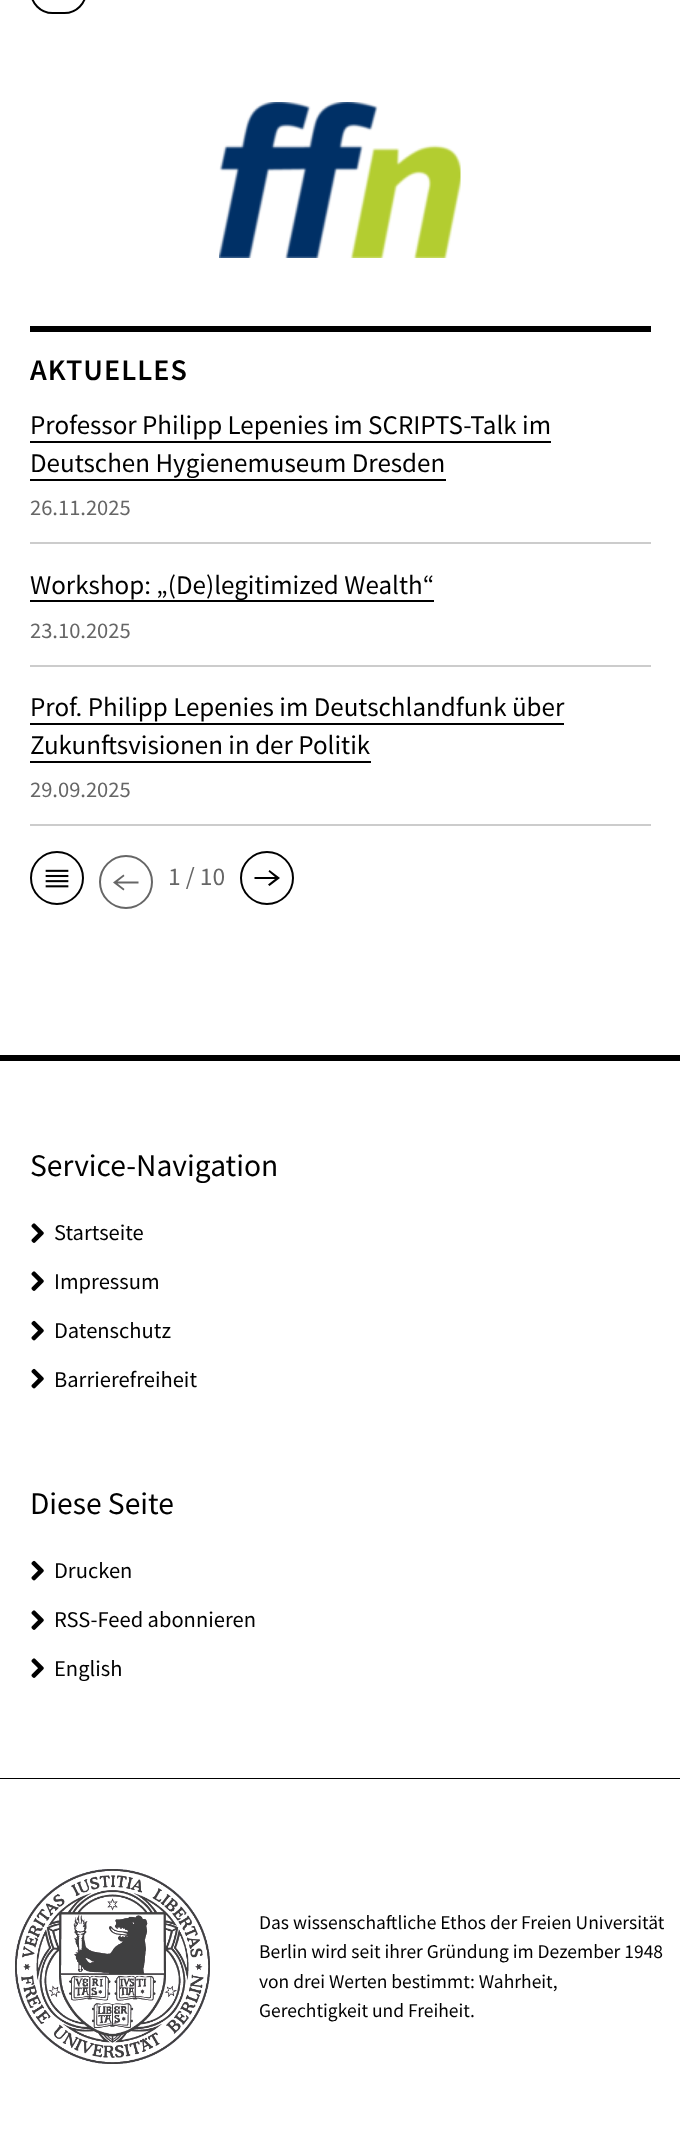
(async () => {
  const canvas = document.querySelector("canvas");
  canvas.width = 680;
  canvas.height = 2154;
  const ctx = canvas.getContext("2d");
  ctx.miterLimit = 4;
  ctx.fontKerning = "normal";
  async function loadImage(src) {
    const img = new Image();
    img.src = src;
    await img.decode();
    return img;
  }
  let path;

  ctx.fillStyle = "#ffffff";
  ctx.fillRect(0, 0, 680, 2154);
  ctx.beginPath();
  ctx.roundRect(31, -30, 55, 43, 27.5);
  ctx.strokeStyle = "#000000";
  ctx.lineWidth = 2;
  ctx.stroke();
  ctx.drawImage(await loadImage("img/1.png"), 219, 102, 242, 156);
  for (const [x, y, w, h, color] of [
    [30, 326, 621, 6, "#000000"],
    [30, 542, 621, 2, "#cccccc"],
    [30, 441, 521, 2, "#000000"],
    [30, 479, 416, 2, "#000000"],
    [30, 665, 621, 2, "#cccccc"],
    [30, 600, 404, 2, "#000000"],
    [30, 824, 621, 2, "#cccccc"],
    [30, 723, 534, 2, "#000000"],
    [30, 761, 341, 2, "#000000"],
  ]) {
    ctx.fillStyle = color;
    ctx.fillRect(x, y, w, h);
  }
  ctx.beginPath();
  ctx.arc(57, 878, 26, 0, Math.PI * 2);
  ctx.stroke();
  ctx.drawImage(await loadImage("img/2.png"), 45, 869, 24, 19);
  ctx.beginPath();
  ctx.arc(126, 882, 26, 0, Math.PI * 2);
  ctx.strokeStyle = "#666666";
  ctx.stroke();
  ctx.fillStyle = "#666666";
  path = new Path2D("M138.5 881.5H117.5L124.5 876L123.5 874.5L113 882.5L123.5 890.5L124.5 889L117.5 883.5H138.5Z");
  ctx.fill(path);
  ctx.beginPath();
  ctx.arc(267, 878, 26, 0, Math.PI * 2);
  ctx.strokeStyle = "#000000";
  ctx.stroke();
  ctx.fillStyle = "#000000";
  path = new Path2D("M269.5 870L268.5 871.5L275 877H254.5V879H275L268 884.5L269.5 886L280 878Z");
  ctx.fill(path);
  ctx.fillRect(0, 1055, 680, 6);
  ctx.fillRect(0, 1778, 680, 1);
  ctx.drawImage(await loadImage("img/3.png"), 31, 1223, 13, 20);
  ctx.drawImage(await loadImage("img/3.png"), 31, 1271, 13, 20);
  ctx.drawImage(await loadImage("img/4.png"), 31, 1320, 13, 21);
  ctx.drawImage(await loadImage("img/4.png"), 31, 1368, 13, 21);
  ctx.drawImage(await loadImage("img/4.png"), 31, 1560, 13, 21);
  ctx.drawImage(await loadImage("img/3.png"), 31, 1610, 13, 20);
  ctx.drawImage(await loadImage("img/3.png"), 31, 1658, 13, 20);
  ctx.drawImage(await loadImage("img/5.png"), 15, 1869, 195, 195);
  ctx.letterSpacing = "1px";
  ctx.font = "600 30px Source Sans Pro";
  ctx.fillText("AKTUELLES", 30, 380);
  ctx.letterSpacing = "0px";
  ctx.font = "27px Source Sans Pro";
  ctx.fillText("Professor Philipp Lepenies im SCRIPTS-Talk im", 30, 434);
  ctx.fillText("Deutschen Hygienemuseum Dresden", 30, 472);
  ctx.font = "22.5px Source Sans Pro";
  ctx.fillStyle = "#666666";
  ctx.fillText("26.11.2025", 30, 515);
  ctx.font = "27px Source Sans Pro";
  ctx.fillStyle = "#000000";
  ctx.fillText("Workshop: „(De)legitimized Wealth“", 30, 594);
  ctx.font = "22.5px Source Sans Pro";
  ctx.fillStyle = "#666666";
  ctx.fillText("23.10.2025", 30, 638);
  ctx.font = "27px Source Sans Pro";
  ctx.fillStyle = "#000000";
  ctx.fillText("Prof. Philipp Lepenies im Deutschlandfunk über", 30, 716);
  ctx.fillText("Zukunftsvisionen in der Politik", 30, 754);
  ctx.font = "22.5px Source Sans Pro";
  ctx.fillStyle = "#666666";
  ctx.fillText("29.09.2025", 30, 797);
  ctx.font = "25.5px Source Sans Pro";
  ctx.fillText("1 / 10", 168, 885);
  ctx.font = "31.5px Source Sans Pro";
  ctx.fillStyle = "#000000";
  ctx.fillText("Service-Navigation", 30, 1176);
  ctx.font = "22.5px Source Sans Pro";
  for (const [text, x, y] of [
    ["Startseite", 54, 1240],
    ["Impressum", 54, 1289],
    ["Datenschutz", 54, 1338],
    ["Barrierefreiheit", 54, 1387],
  ]) {
    ctx.fillText(text, x, y);
  }
  ctx.font = "31.5px Source Sans Pro";
  ctx.fillText("Diese Seite", 30, 1514);
  ctx.font = "22.5px Source Sans Pro";
  for (const [text, x, y] of [
    ["Drucken", 54, 1578],
    ["RSS-Feed abonnieren", 54, 1627],
    ["English", 54, 1676],
  ]) {
    ctx.fillText(text, x, y);
  }
  ctx.font = "19.5px Source Sans Pro";
  for (const [text, x, y] of [
    ["Das wissenschaftliche Ethos der Freien Universität", 259, 1929],
    ["Berlin wird seit ihrer Gründung im Dezember 1948", 259, 1958],
    ["von drei Werten bestimmt: Wahrheit,", 259, 1988],
    ["Gerechtigkeit und Freiheit.", 259, 2017],
  ]) {
    ctx.fillText(text, x, y);
  }
})();
